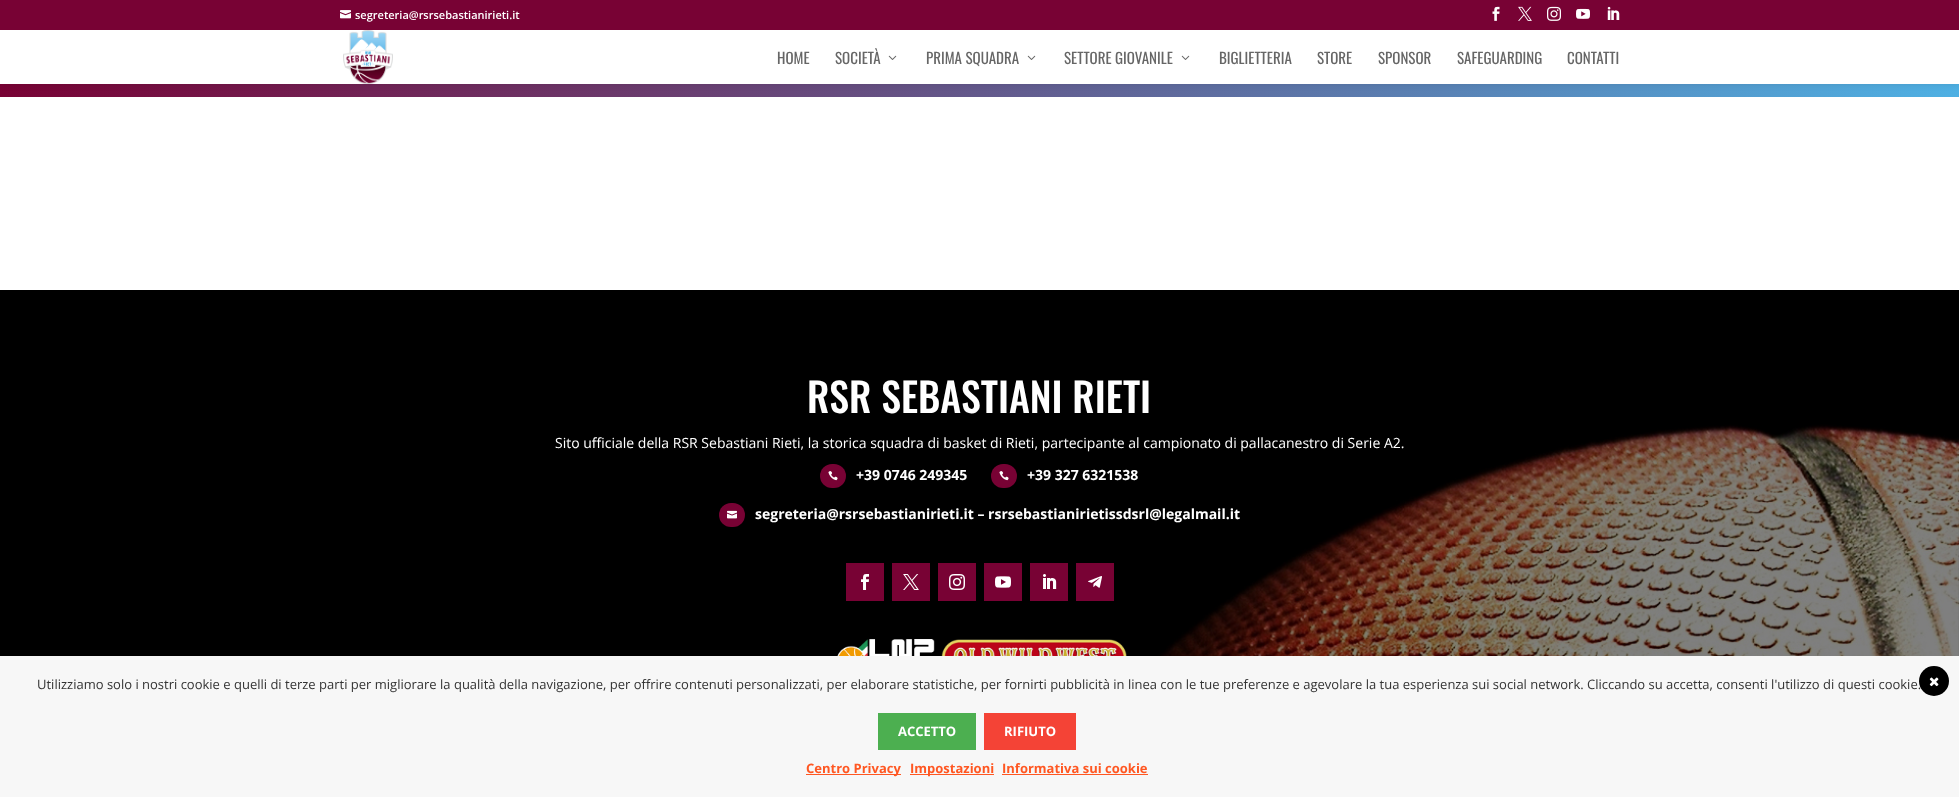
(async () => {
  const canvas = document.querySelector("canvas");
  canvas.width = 1959;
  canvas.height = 797;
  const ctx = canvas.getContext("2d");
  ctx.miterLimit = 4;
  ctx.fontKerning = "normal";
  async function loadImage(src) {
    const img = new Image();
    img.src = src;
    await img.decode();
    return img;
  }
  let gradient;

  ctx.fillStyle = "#ffffff";
  ctx.fillRect(0, 0, 1959, 797);
  gradient = ctx.createLinearGradient(0, -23, 1959, -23);
  gradient.addColorStop(0, "#780234");
  gradient.addColorStop(1, "#4eb0e3");
  ctx.fillStyle = gradient;
  ctx.fillRect(0, 84, 1959, 13);
  ctx.fillStyle = "rgba(0, 0, 0, 0.1)";
  ctx.filter = "blur(3.5px)";
  ctx.beginPath();
  ctx.rect(0, 30, 1959, 54);
  ctx.fill();
  ctx.filter = "none";
  ctx.fillStyle = "#780234";
  ctx.fillRect(0, 0, 1959, 30);
  ctx.drawImage(await loadImage("img/1.png"), 340, 10, 11, 9);
  ctx.drawImage(await loadImage("img/2.png"), 1492, 6, 8, 15);
  ctx.drawImage(await loadImage("img/3.png"), 1518, 6, 14, 15);
  ctx.drawImage(await loadImage("img/4.png"), 1547, 6, 14, 15);
  ctx.drawImage(await loadImage("img/5.png"), 1576, 8, 14, 11);
  ctx.drawImage(await loadImage("img/6.png"), 1607, 6, 13, 14);
  ctx.fillStyle = "#ffffff";
  ctx.fillRect(0, 30, 1959, 54);
  ctx.drawImage(await loadImage("img/7.png"), 343, 30, 50, 54);
  ctx.drawImage(await loadImage("img/8.png"), 888, 55, 9, 5);
  ctx.drawImage(await loadImage("img/8.png"), 1027, 55, 9, 5);
  ctx.drawImage(await loadImage("img/8.png"), 1181, 55, 9, 5);
  ctx.drawImage(await loadImage("img/9.png"), 0, 290, 1959, 366);
  ctx.fillStyle = "#780234";
  ctx.beginPath();
  ctx.roundRect(820, 464, 26, 24, 12);
  ctx.fill();
  ctx.drawImage(await loadImage("img/10.png"), 828, 471, 10, 10);
  ctx.beginPath();
  ctx.roundRect(991, 464, 26, 24, 12);
  ctx.fill();
  ctx.drawImage(await loadImage("img/10.png"), 999, 471, 10, 10);
  ctx.beginPath();
  ctx.roundRect(719, 503, 26, 24, 12);
  ctx.fill();
  ctx.drawImage(await loadImage("img/11.png"), 727, 510, 10, 9);
  ctx.fillRect(846, 563, 38, 38);
  ctx.drawImage(await loadImage("img/12.png"), 861, 574, 8, 16);
  ctx.fillRect(892, 563, 38, 38);
  ctx.drawImage(await loadImage("img/13.png"), 903, 574, 16, 16);
  ctx.fillRect(938, 563, 38, 38);
  ctx.drawImage(await loadImage("img/14.png"), 949, 574, 16, 16);
  ctx.fillRect(984, 563, 38, 38);
  ctx.drawImage(await loadImage("img/15.png"), 995, 576, 16, 12);
  ctx.fillRect(1030, 563, 38, 38);
  ctx.drawImage(await loadImage("img/16.png"), 1043, 574, 14, 15);
  ctx.fillRect(1076, 563, 38, 38);
  ctx.drawImage(await loadImage("img/17.png"), 1088, 576, 14, 12);
  ctx.drawImage(await loadImage("img/18.png"), 837, 639, 290, 17);
  for (const [x, y, w, h, color] of [
    [0, 656, 1959, 141, "#f7f7f7"],
    [878, 713, 98, 37, "#4caf50"],
    [984, 713, 92, 37, "#f44336"],
    [806, 774, 95, 1, "#ff5722"],
    [910, 774, 84, 1, "#ff5722"],
    [1002, 774, 146, 1, "#ff5722"],
  ]) {
    ctx.fillStyle = color;
    ctx.fillRect(x, y, w, h);
  }
  ctx.font = "600 11px Open Sans";
  ctx.fillStyle = "#ffffff";
  ctx.fillText("segreteria@rsrsebastianirieti.it", 355, 19);
  ctx.font = "15px Oswald";
  ctx.fillStyle = "#666666";
  for (const [text, x, y] of [
    ["HOME", 777, 64],
    ["SOCIETÀ", 835, 64],
    ["PRIMA SQUADRA", 926, 64],
    ["SETTORE GIOVANILE", 1064, 64],
    ["BIGLIETTERIA", 1219, 64],
    ["STORE", 1317, 64],
    ["SPONSOR", 1378, 64],
    ["SAFEGUARDING", 1457, 64],
    ["CONTATTI", 1567, 64],
  ]) {
    ctx.fillText(text, x, y);
  }
  ctx.font = "500 40px Oswald";
  ctx.fillStyle = "#ffffff";
  ctx.fillText("RSR SEBASTIANI RIETI", 807, 413);
  ctx.font = "14px Open Sans";
  ctx.fillText("Sito ufficiale della RSR Sebastiani Rieti, la storica squadra di basket di Rieti, partecipante al campionato di pallacanestro di Serie A2.", 555, 448);
  ctx.font = "bold 14px Open Sans";
  for (const [text, x, y] of [
    ["+39 0746 249345", 856, 480],
    ["+39 327 6321538", 1027, 480],
    ["segreteria@rsrsebastianirieti.it – rsrsebastianirietissdsrl@legalmail.it", 755, 519],
  ]) {
    ctx.fillText(text, x, y);
  }
  ctx.font = "13px Open Sans";
  ctx.fillStyle = "#333333";
  ctx.fillText("Utilizziamo solo i nostri cookie e quelli di terze parti per migliorare la qualità della navigazione, per offrire contenuti personalizzati, per elaborare statistiche, per fornirti pubblicità in linea con le tue preferenze e agevolare la tua esperienza sui social network. Cliccando su accetta, consenti l'utilizzo di questi cookie.", 37, 689);
  ctx.fillStyle = "#000000";
  ctx.beginPath();
  ctx.arc(1934, 681, 15, 0, Math.PI * 2);
  ctx.fill();
  ctx.drawImage(await loadImage("img/19.png"), 1929, 677, 10, 10);
  ctx.font = "bold 13px Open Sans";
  ctx.fillStyle = "#ffffff";
  ctx.fillText("ACCETTO", 898, 736);
  ctx.fillText("RIFIUTO", 1004, 736);
  ctx.fillStyle = "#ff5722";
  for (const [text, x, y] of [
    ["Centro Privacy", 806, 773],
    ["Impostazioni", 910, 773],
    ["Informativa sui cookie", 1002, 773],
  ]) {
    ctx.fillText(text, x, y);
  }
})();
